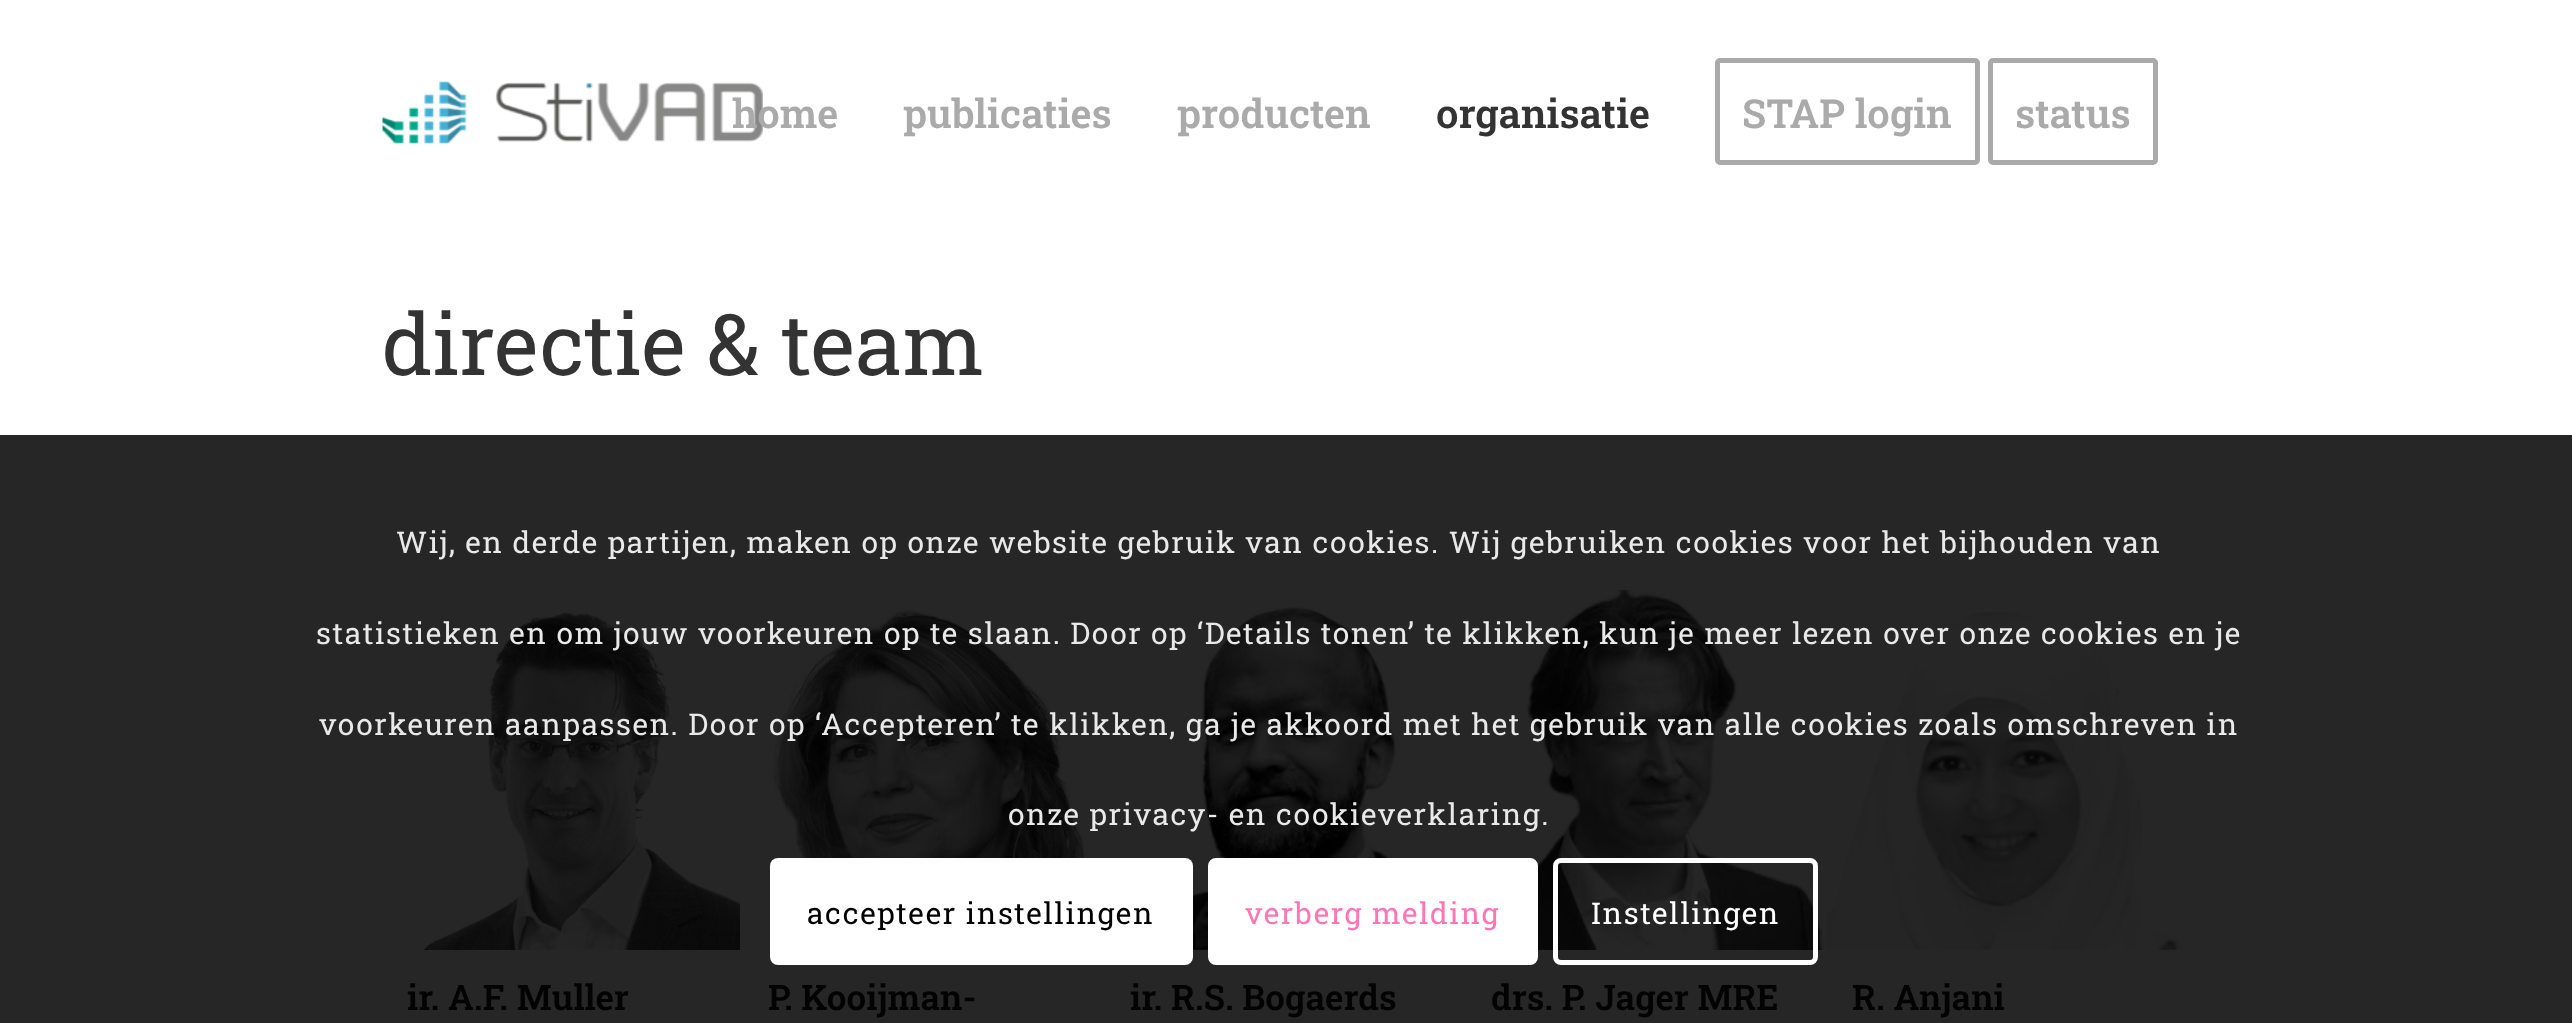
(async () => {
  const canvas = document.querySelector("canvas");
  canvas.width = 2572;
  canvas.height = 1023;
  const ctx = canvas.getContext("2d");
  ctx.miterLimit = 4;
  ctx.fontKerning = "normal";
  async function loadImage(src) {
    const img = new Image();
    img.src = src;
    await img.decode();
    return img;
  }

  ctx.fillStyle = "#ffffff";
  ctx.fillRect(0, 0, 2572, 1023);
  ctx.drawImage(await loadImage("img/1.png"), 382, 80, 381, 65);
  ctx.beginPath();
  ctx.roundRect(1717.5, 60.5, 260, 102, 2.5);
  ctx.strokeStyle = "#aaaaaa";
  ctx.lineWidth = 5;
  ctx.stroke();
  ctx.beginPath();
  ctx.roundRect(1990.5, 60.5, 165, 102, 2.5);
  ctx.stroke();
  ctx.fillStyle = "#262626";
  ctx.fillRect(0, 435, 2572, 588);
  ctx.drawImage(await loadImage("img/2.png"), 423, 612, 317, 338);
  ctx.drawImage(await loadImage("img/3.png"), 773, 610, 312, 248);
  ctx.drawImage(await loadImage("img/4.png"), 1193, 607, 203, 343);
  ctx.drawImage(await loadImage("img/5.png"), 1526, 590, 298, 360);
  ctx.drawImage(await loadImage("img/6.png"), 1827, 612, 358, 338);
  ctx.fillStyle = "#ffffff";
  ctx.beginPath();
  ctx.roundRect(770, 858, 423, 107, 8);
  ctx.fill();
  ctx.beginPath();
  ctx.roundRect(1210.5, 860.5, 325, 102, 5.5);
  ctx.fill();
  ctx.strokeStyle = "#ffffff";
  ctx.stroke();
  ctx.beginPath();
  ctx.roundRect(1555.5, 860.5, 260, 102, 5.5);
  ctx.stroke();
  ctx.font = "600 40px Roboto Slab";
  ctx.fillStyle = "#aaaaaa";
  for (const [text, x, y] of [
    ["home", 732, 128],
    ["publicaties", 903, 128],
    ["producten", 1177, 128],
  ]) {
    ctx.fillText(text, x, y);
  }
  ctx.fillStyle = "#333333";
  ctx.fillText("organisatie", 1436, 128);
  ctx.fillStyle = "#aaaaaa";
  ctx.fillText("STAP login", 1742, 128);
  ctx.fillText("status", 2015, 128);
  ctx.font = "85px Roboto Slab";
  ctx.fillStyle = "#333333";
  ctx.fillText("directie & team", 382, 375);
  ctx.font = "600 35px Roboto Slab";
  ctx.fillStyle = "#030303";
  for (const [text, x, y] of [
    ["ir. A.F. Muller", 407, 1010],
    ["P. Kooijman-", 768, 1010],
    ["ir. R.S. Bogaerds", 1130, 1010],
    ["drs. P. Jager MRE", 1491, 1010],
    ["R. Anjani", 1852, 1010],
  ]) {
    ctx.fillText(text, x, y);
  }
  ctx.letterSpacing = "1.5px";
  ctx.font = "30px Roboto Slab";
  ctx.fillStyle = "#e9e9e9";
  for (const [text, x, y] of [
    ["Wij, en derde partijen, maken op onze website gebruik van cookies. Wij gebruiken cookies voor het bijhouden van", 396, 553],
    ["statistieken en om jouw voorkeuren op te slaan. Door op ‘Details tonen’ te klikken, kun je meer lezen over onze cookies en je", 316, 644],
    ["voorkeuren aanpassen. Door op ‘Accepteren’ te klikken, ga je akkoord met het gebruik van alle cookies zoals omschreven in", 319, 735],
    ["onze privacy- en cookieverklaring.", 1008, 825],
  ]) {
    ctx.fillText(text, x, y);
  }
  ctx.fillStyle = "#030303";
  ctx.fillText("accepteer instellingen", 807, 924);
  ctx.fillStyle = "#ff75b5";
  ctx.fillText("verberg melding", 1245, 924);
  ctx.fillStyle = "#ffffff";
  ctx.fillText("Instellingen", 1591, 924);
})();
